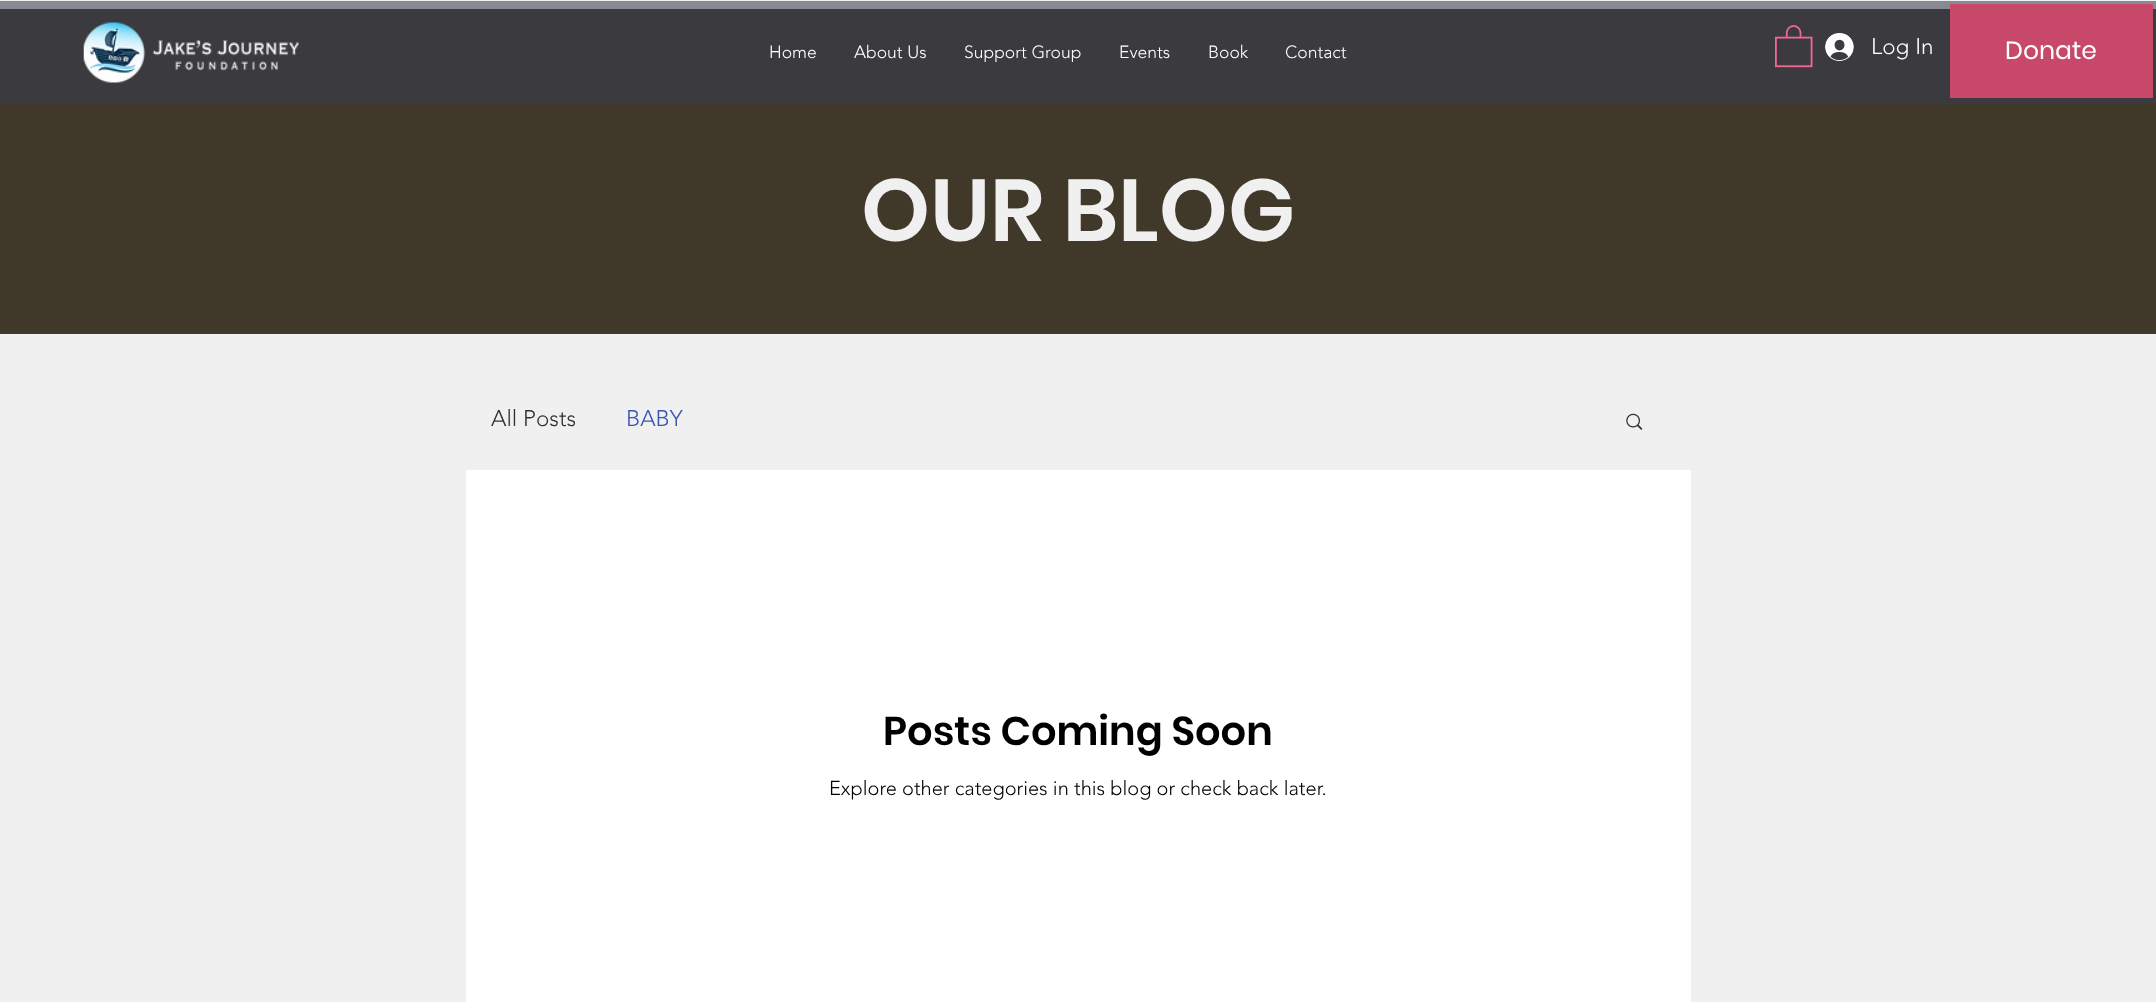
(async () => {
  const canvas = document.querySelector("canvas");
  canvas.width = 2156;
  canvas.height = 1002;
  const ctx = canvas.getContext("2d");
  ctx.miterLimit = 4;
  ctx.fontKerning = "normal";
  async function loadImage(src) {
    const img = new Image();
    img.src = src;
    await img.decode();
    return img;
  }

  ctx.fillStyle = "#f0f0f0";
  ctx.fillRect(0, 0, 2156, 1002);
  ctx.fillStyle = "#878993";
  ctx.fillRect(0, 1, 2156, 8);
  ctx.fillStyle = "#3b3a3e";
  ctx.fillRect(0, 9, 2156, 95);
  ctx.drawImage(await loadImage("img/1.png"), 83, 22, 216, 61);
  ctx.drawImage(await loadImage("img/2.png"), 1775, 25, 38, 43);
  ctx.drawImage(await loadImage("img/3.png"), 1825, 33, 29, 28);
  ctx.fillStyle = "#c84869";
  ctx.fillRect(1950, 4, 203, 94);
  ctx.fillStyle = "#40392a";
  ctx.fillRect(0, 104, 2156, 230);
  ctx.drawImage(await loadImage("img/4.png"), 1626, 413, 17, 17);
  ctx.fillStyle = "#ffffff";
  ctx.fillRect(466, 470, 1225, 532);
  ctx.font = "300 17.5px 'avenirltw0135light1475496'";
  for (const [text, x, y] of [
    ["Home", 769, 58],
    ["About Us", 854, 58],
    ["Support Group", 964, 58],
    ["Events", 1119, 58],
    ["Book", 1208, 58],
    ["Contact", 1285, 58],
  ]) {
    ctx.fillText(text, x, y);
  }
  ctx.font = "300 22.5px 'avenirltw0135light1475496'";
  ctx.fillText("Log In", 1871, 54);
  ctx.font = "25px Poppins";
  ctx.fillText("Donate", 2005, 59);
  ctx.font = "600 87.5px Poppins";
  ctx.fillStyle = "#f0f0f0";
  ctx.fillText("OUR BLOG", 861, 241);
  ctx.font = "300 22.5px 'avenirltw0135light1475496'";
  ctx.fillStyle = "#303030";
  ctx.fillText("All Posts", 491, 426);
  ctx.fillStyle = "#3a54b4";
  ctx.fillText("BABY", 626, 426);
  ctx.font = "600 40px Poppins";
  ctx.fillStyle = "#000000";
  ctx.fillText("Posts Coming Soon", 883, 745);
  ctx.font = "300 20px 'avenirltw0135light1475496'";
  ctx.fillText("Explore other categories in this blog or check back later.", 829, 795);
})();
